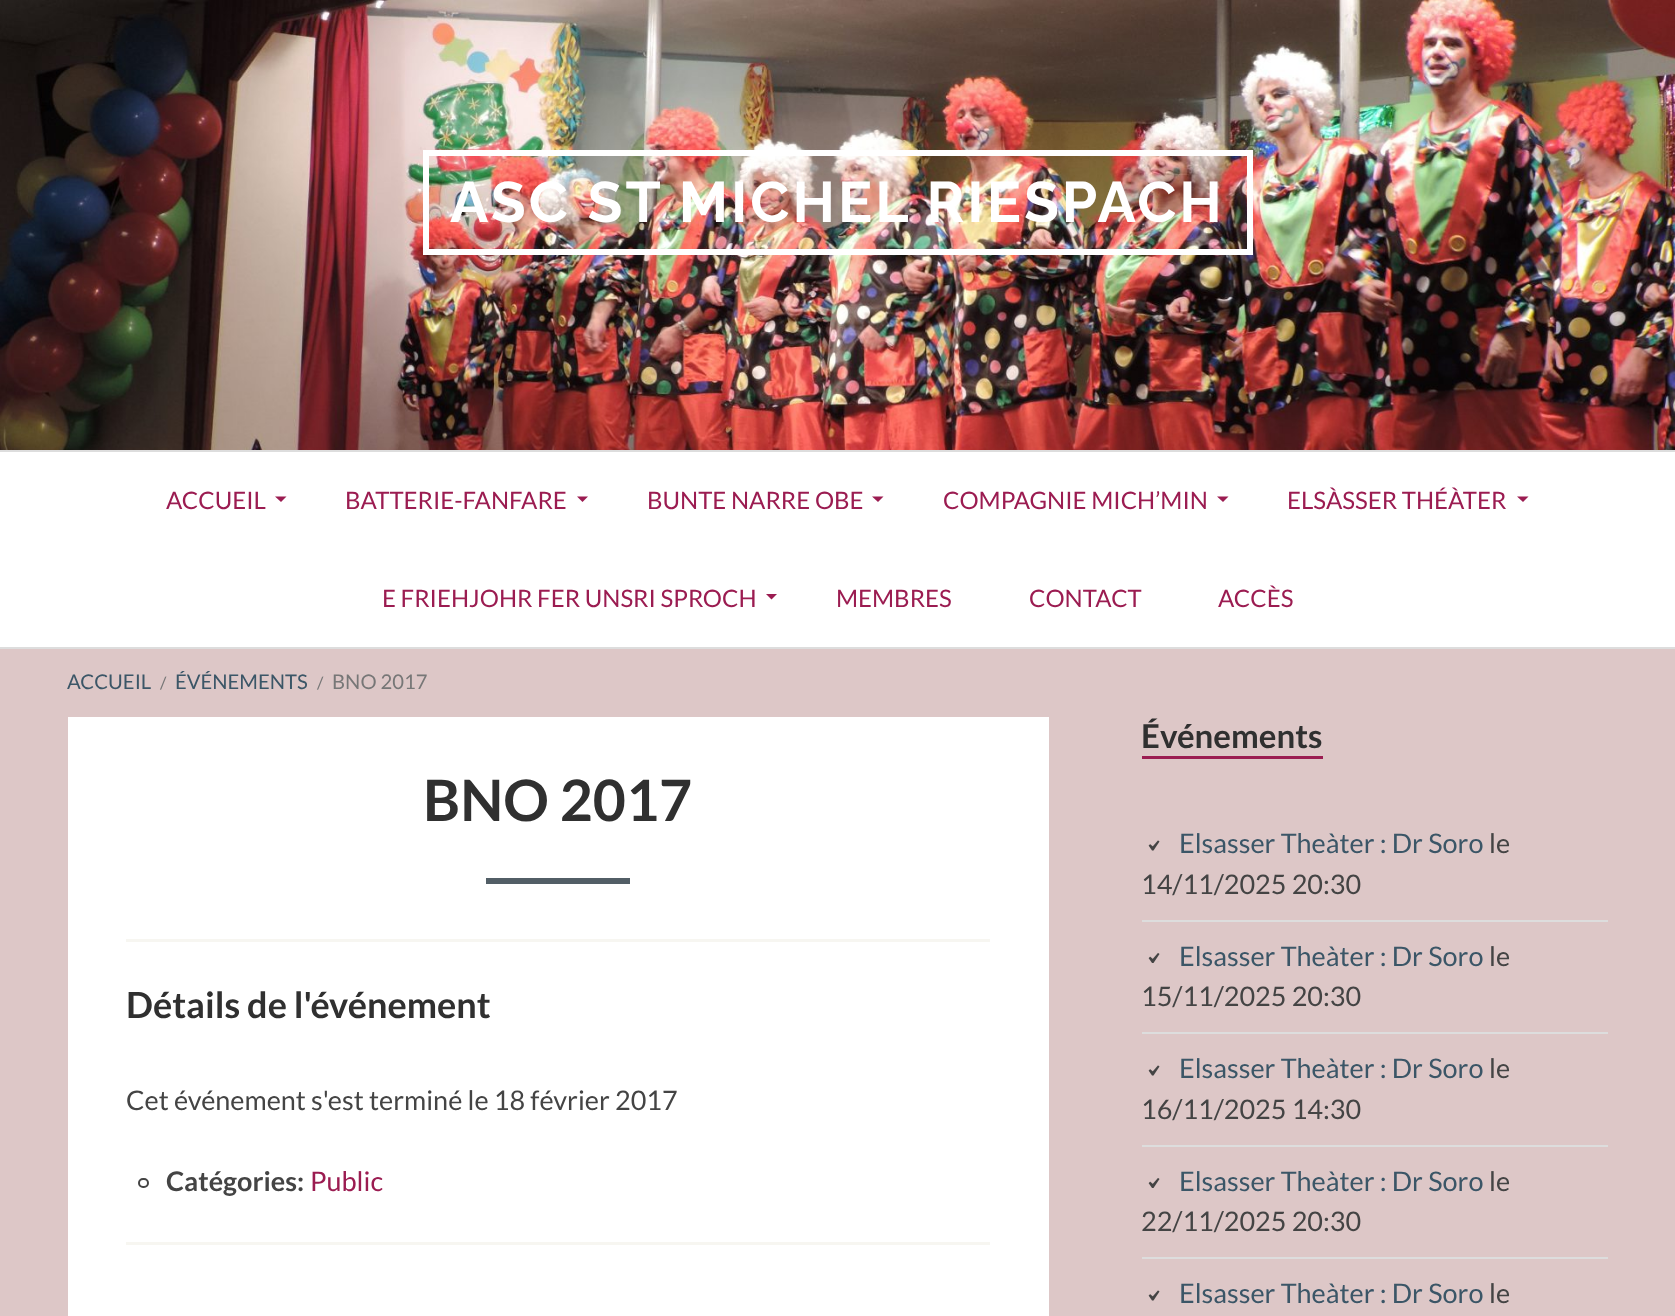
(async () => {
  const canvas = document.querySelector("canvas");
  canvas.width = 1675;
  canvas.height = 1316;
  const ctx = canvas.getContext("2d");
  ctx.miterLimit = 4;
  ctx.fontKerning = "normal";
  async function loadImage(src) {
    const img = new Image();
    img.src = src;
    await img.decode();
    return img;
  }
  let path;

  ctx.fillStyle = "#ddc7c7";
  ctx.fillRect(0, 0, 1675, 1316);
  ctx.drawImage(await loadImage("img/1.png"), 0, 0, 1675, 450);
  ctx.fillStyle = "#dddddd";
  ctx.fillRect(0, 450, 1675, 2);
  ctx.strokeStyle = "#ffffff";
  ctx.lineWidth = 6;
  ctx.strokeRect(426, 153, 824, 99);
  ctx.fillStyle = "#ffffff";
  ctx.fillRect(0, 452, 1675, 195);
  ctx.fillStyle = "#dddddd";
  ctx.fillRect(0, 647, 1675, 2);
  ctx.fillStyle = "#9b1c51";
  path = new Path2D("M275 496.5H286.5L281 502Z");
  ctx.fill(path);
  path = new Path2D("M577 496.5H588L582.5 502Z");
  ctx.fill(path);
  path = new Path2D("M872 496.5H883.5L878 502Z");
  ctx.fill(path);
  path = new Path2D("M1217 496.5H1228.5L1223 502Z");
  ctx.fill(path);
  path = new Path2D("M1517 496.5H1528.5L1523 502Z");
  ctx.fill(path);
  path = new Path2D("M766 594H777L771.5 599.5Z");
  ctx.fill(path);
  for (const [x, y, w, h, color] of [
    [68, 717, 981, 599, "#ffffff"],
    [486, 878, 144, 6, "#525e66"],
    [126, 939, 864, 3, "#f7f6f1"],
  ]) {
    ctx.fillStyle = color;
    ctx.fillRect(x, y, w, h);
  }
  ctx.beginPath();
  ctx.roundRect(139, 1179, 9, 8, 4);
  ctx.strokeStyle = "#444444";
  ctx.lineWidth = 2;
  ctx.stroke();
  for (const [x, y, w, h, color] of [
    [126, 1242, 864, 3, "#f7f6f1"],
    [1142, 756, 181, 3, "#9b1c51"],
    [1142, 920, 466, 2, "#dddddd"],
  ]) {
    ctx.fillStyle = color;
    ctx.fillRect(x, y, w, h);
  }
  ctx.drawImage(await loadImage("img/2.png"), 1148, 840, 12, 11);
  ctx.fillRect(1142, 1032, 466, 2);
  ctx.drawImage(await loadImage("img/3.png"), 1148, 953, 12, 10);
  ctx.fillRect(1142, 1145, 466, 2);
  ctx.drawImage(await loadImage("img/2.png"), 1148, 1065, 12, 11);
  ctx.fillRect(1142, 1257, 466, 2);
  ctx.drawImage(await loadImage("img/3.png"), 1148, 1178, 12, 10);
  ctx.drawImage(await loadImage("img/2.png"), 1148, 1290, 12, 11);
  ctx.letterSpacing = "3px";
  ctx.font = "bold 57px Raleway";
  ctx.fillStyle = "#ffffff";
  ctx.fillText("ASC ST MICHEL RIESPACH", 450, 222);
  ctx.letterSpacing = "0px";
  ctx.font = "24px Lato";
  ctx.fillStyle = "#9b1c51";
  for (const [text, x, y] of [
    ["ACCUEIL", 166, 509],
    ["BATTERIE-FANFARE", 345, 509],
    ["BUNTE NARRE OBE", 647, 509],
    ["COMPAGNIE MICH’MIN", 943, 509],
    ["ELSÀSSER THÉÀTER", 1287, 509],
    ["E FRIEHJOHR FER UNSRI SPROCH", 382, 607],
    ["MEMBRES", 836, 607],
    ["CONTACT", 1029, 607],
    ["ACCÈS", 1218, 607],
  ]) {
    ctx.fillText(text, x, y);
  }
  ctx.font = "20.25px Lato";
  ctx.fillStyle = "#3b5667";
  ctx.fillText("ACCUEIL", 67, 689);
  ctx.font = "17px Lato";
  ctx.fillStyle = "#777777";
  ctx.fillText("/", 160, 689);
  ctx.font = "20.25px Lato";
  ctx.fillStyle = "#3b5667";
  ctx.fillText("ÉVÉNEMENTS", 175, 689);
  ctx.font = "17px Lato";
  ctx.fillStyle = "#777777";
  ctx.fillText("/", 317, 689);
  ctx.font = "20.25px Lato";
  ctx.fillText("BNO 2017", 332, 689);
  ctx.font = "bold 57px Lato";
  ctx.fillStyle = "#303030";
  ctx.fillText("BNO 2017", 423, 821);
  ctx.font = "bold 36px Lato";
  ctx.fillText("Détails de l'événement", 126, 1018);
  ctx.font = "27px Lato";
  ctx.fillStyle = "#444444";
  ctx.fillText("Cet événement s'est terminé le 18 février 2017", 126, 1110);
  ctx.font = "bold 27px Lato";
  ctx.fillText("Catégories:", 166, 1191);
  ctx.font = "27px Lato";
  ctx.fillStyle = "#9b1c51";
  ctx.fillText("Public", 310, 1191);
  ctx.font = "bold 33px Lato";
  ctx.fillStyle = "#303030";
  ctx.fillText("Événements", 1141, 748);
  ctx.font = "27px Lato";
  ctx.fillStyle = "#3b5667";
  ctx.fillText("Elsasser Theàter : Dr Soro", 1179, 853);
  ctx.fillStyle = "#444444";
  ctx.fillText("le", 1489, 853);
  ctx.fillText("14/11/2025 20:30", 1141, 894);
  ctx.fillStyle = "#3b5667";
  ctx.fillText("Elsasser Theàter : Dr Soro", 1179, 966);
  ctx.fillStyle = "#444444";
  ctx.fillText("le", 1489, 966);
  ctx.fillText("15/11/2025 20:30", 1141, 1006);
  ctx.fillStyle = "#3b5667";
  ctx.fillText("Elsasser Theàter : Dr Soro", 1179, 1078);
  ctx.fillStyle = "#444444";
  ctx.fillText("le", 1489, 1078);
  ctx.fillText("16/11/2025 14:30", 1141, 1119);
  ctx.fillStyle = "#3b5667";
  ctx.fillText("Elsasser Theàter : Dr Soro", 1179, 1191);
  ctx.fillStyle = "#444444";
  ctx.fillText("le", 1489, 1191);
  ctx.fillText("22/11/2025 20:30", 1141, 1231);
  ctx.fillStyle = "#3b5667";
  ctx.fillText("Elsasser Theàter : Dr Soro", 1179, 1303);
  ctx.fillStyle = "#444444";
  ctx.fillText("le", 1489, 1303);
})();
